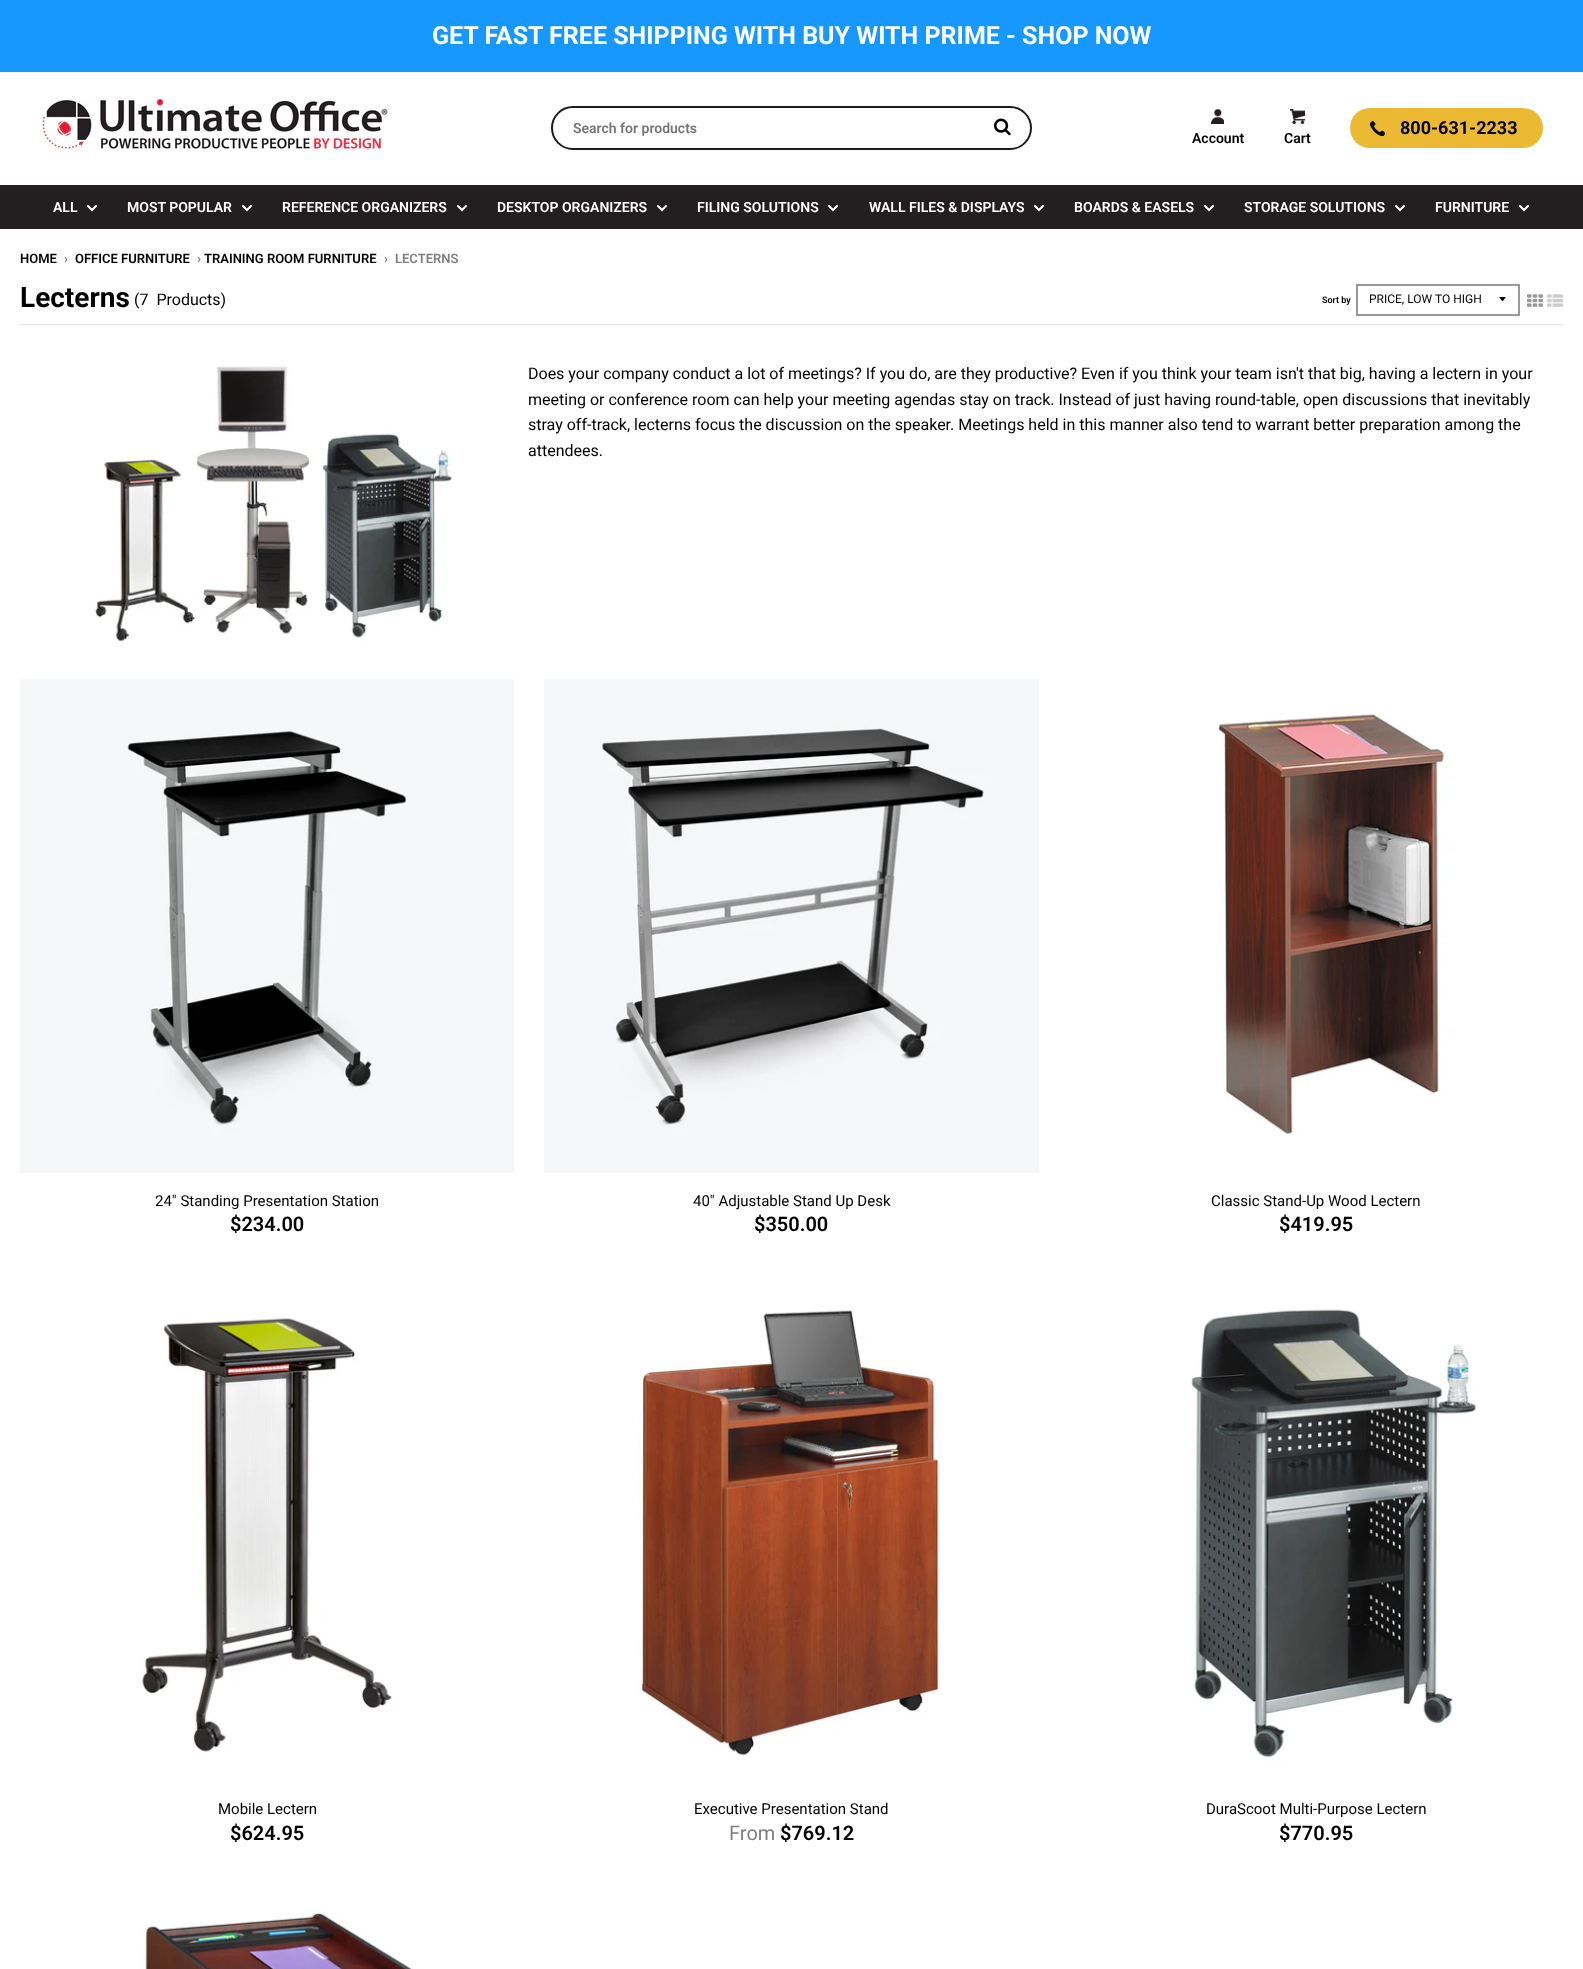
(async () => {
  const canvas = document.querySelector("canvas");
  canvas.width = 1583;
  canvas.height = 1969;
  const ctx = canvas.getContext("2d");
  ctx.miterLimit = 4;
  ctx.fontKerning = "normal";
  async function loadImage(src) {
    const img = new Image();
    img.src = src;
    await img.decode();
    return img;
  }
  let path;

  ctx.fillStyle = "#ffffff";
  ctx.fillRect(0, 0, 1583, 1969);
  ctx.fillStyle = "#1698fe";
  ctx.fillRect(0, 0, 1583, 72);
  ctx.drawImage(await loadImage("img/1.png"), 40, 97, 348, 55);
  ctx.beginPath();
  ctx.roundRect(552, 107, 479, 42, 21);
  ctx.strokeStyle = "#1d1d1d";
  ctx.lineWidth = 2;
  ctx.stroke();
  ctx.drawImage(await loadImage("img/2.png"), 994, 118, 17, 18);
  ctx.fillStyle = "#ebb932";
  ctx.beginPath();
  ctx.roundRect(1350, 108, 193, 40, 20);
  ctx.fill();
  ctx.drawImage(await loadImage("img/3.png"), 1370, 121, 15, 15);
  ctx.drawImage(await loadImage("img/4.png"), 1211, 109, 13, 15);
  ctx.drawImage(await loadImage("img/5.png"), 1290, 109, 15, 15);
  ctx.fillStyle = "#231f20";
  ctx.fillRect(0, 185, 1583, 44);
  path = new Path2D("M88 206L92 210L96 206");
  ctx.strokeStyle = "#ffffff";
  ctx.lineCap = "round";
  ctx.stroke(path);
  path = new Path2D("M243 206L247 210L251 206");
  ctx.stroke(path);
  path = new Path2D("M458 206L462 210L466 206");
  ctx.stroke(path);
  path = new Path2D("M658 206L662 210L666 206");
  ctx.stroke(path);
  path = new Path2D("M829 206L833 210L837 206");
  ctx.stroke(path);
  path = new Path2D("M1035 206L1039 210L1043 206");
  ctx.stroke(path);
  path = new Path2D("M1205 206L1209 210L1213 206");
  ctx.stroke(path);
  path = new Path2D("M1396 206L1400 210L1404 206");
  ctx.stroke(path);
  path = new Path2D("M1520 206L1524 210L1528 206");
  ctx.stroke(path);
  ctx.fillStyle = "#e5e5e5";
  ctx.fillRect(20, 324, 1543, 1);
  ctx.fillStyle = "#000000";
  path = new Path2D("M1499 297C1503.5 302.5 1501.5 302.5 1506 297Z");
  ctx.fill(path);
  ctx.strokeStyle = "#999999";
  ctx.strokeRect(1357, 285, 162, 30);
  ctx.drawImage(await loadImage("img/6.png"), 1527, 294, 16, 13);
  ctx.drawImage(await loadImage("img/7.png"), 1547, 294, 16, 13);
  ctx.drawImage(await loadImage("img/8.png"), 93, 366, 359, 277);
  ctx.drawImage(await loadImage("img/9.png"), 20, 679, 494, 494);
  ctx.drawImage(await loadImage("img/10.png"), 544, 679, 495, 494);
  ctx.drawImage(await loadImage("img/11.png"), 1069, 679, 494, 494);
  ctx.drawImage(await loadImage("img/12.png"), 20, 1288, 494, 494);
  ctx.drawImage(await loadImage("img/13.png"), 544, 1288, 495, 494);
  ctx.drawImage(await loadImage("img/14.png"), 1069, 1288, 494, 494);
  ctx.drawImage(await loadImage("img/15.png"), 20, 1896, 494, 73);
  ctx.font = "bold 25px Roboto";
  ctx.fillStyle = "#ffffff";
  ctx.fillText("GET FAST FREE SHIPPING WITH BUY WITH PRIME - SHOP NOW", 432, 44);
  ctx.font = "600 14px Roboto";
  ctx.fillStyle = "#757575";
  ctx.fillText("Search for products", 573, 133);
  ctx.font = "bold 18px Roboto";
  ctx.fillStyle = "#000000";
  ctx.fillText("800-631-2233", 1400, 134);
  ctx.font = "600 14px Roboto";
  ctx.fillText("Account", 1192, 143);
  ctx.fillText("Cart", 1284, 143);
  ctx.fillStyle = "#ffffff";
  for (const [text, x, y] of [
    ["ALL", 53, 212],
    ["MOST POPULAR", 127, 212],
    ["REFERENCE ORGANIZERS", 282, 212],
    ["DESKTOP ORGANIZERS", 497, 212],
    ["FILING SOLUTIONS", 697, 212],
    ["WALL FILES & DISPLAYS", 869, 212],
    ["BOARDS & EASELS", 1074, 212],
    ["STORAGE SOLUTIONS", 1244, 212],
    ["FURNITURE", 1435, 212],
  ]) {
    ctx.fillText(text, x, y);
  }
  ctx.font = "600 13px Roboto";
  ctx.fillStyle = "#000000";
  ctx.fillText("HOME", 20, 263);
  ctx.fillStyle = "#7f7f7f";
  ctx.fillText("›", 64, 263);
  ctx.fillStyle = "#000000";
  ctx.fillText("OFFICE FURNITURE", 75, 263);
  ctx.fillStyle = "#7f7f7f";
  ctx.fillText("›", 197, 263);
  ctx.fillStyle = "#000000";
  ctx.fillText("TRAINING ROOM FURNITURE", 204, 263);
  ctx.fillStyle = "#7f7f7f";
  ctx.fillText("›", 384, 263);
  ctx.fillText("LECTERNS", 395, 263);
  ctx.font = "bold 28px Roboto";
  ctx.fillStyle = "#000000";
  ctx.fillText("Lecterns", 20, 307);
  ctx.font = "16px Roboto";
  ctx.fillText("(7  Products)", 134, 305);
  ctx.font = "600 9px Roboto";
  ctx.fillText("Sort by", 1322, 303);
  ctx.font = "12px Roboto";
  ctx.fillText("PRICE, LOW TO HIGH", 1369, 303);
  ctx.font = "16px Roboto";
  for (const [text, x, y] of [
    ["Does your company conduct a lot of meetings? If you do, are they productive? Even if you think your team isn't that big, having a lectern in your", 528, 379],
    ["meeting or conference room can help your meeting agendas stay on track. Instead of just having round-table, open discussions that inevitably", 528, 405],
    ["stray off-track, lecterns focus the discussion on the speaker. Meetings held in this manner also tend to warrant better preparation among the", 528, 430],
    ["attendees.", 528, 456],
  ]) {
    ctx.fillText(text, x, y);
  }
  ctx.font = "15px Roboto";
  ctx.fillText("24\" Standing Presentation Station", 155, 1206);
  ctx.font = "600 20px Roboto";
  ctx.fillText("$234.00", 230, 1231);
  ctx.font = "15px Roboto";
  ctx.fillText("40\" Adjustable Stand Up Desk", 693, 1206);
  ctx.font = "600 20px Roboto";
  ctx.fillText("$350.00", 754, 1231);
  ctx.font = "15px Roboto";
  ctx.fillText("Classic Stand-Up Wood Lectern", 1211, 1206);
  ctx.font = "600 20px Roboto";
  ctx.fillText("$419.95", 1279, 1231);
  ctx.font = "15px Roboto";
  ctx.fillText("Mobile Lectern", 218, 1814);
  ctx.font = "600 20px Roboto";
  ctx.fillText("$624.95", 230, 1840);
  ctx.font = "15px Roboto";
  ctx.fillText("Executive Presentation Stand", 694, 1814);
  ctx.font = "20px Roboto";
  ctx.fillStyle = "#7f7f7f";
  ctx.fillText("From", 729, 1840);
  ctx.font = "600 20px Roboto";
  ctx.fillStyle = "#000000";
  ctx.fillText("$769.12", 780, 1840);
  ctx.font = "15px Roboto";
  ctx.fillText("DuraScoot Multi-Purpose Lectern", 1206, 1814);
  ctx.font = "600 20px Roboto";
  ctx.fillText("$770.95", 1279, 1840);
})();
